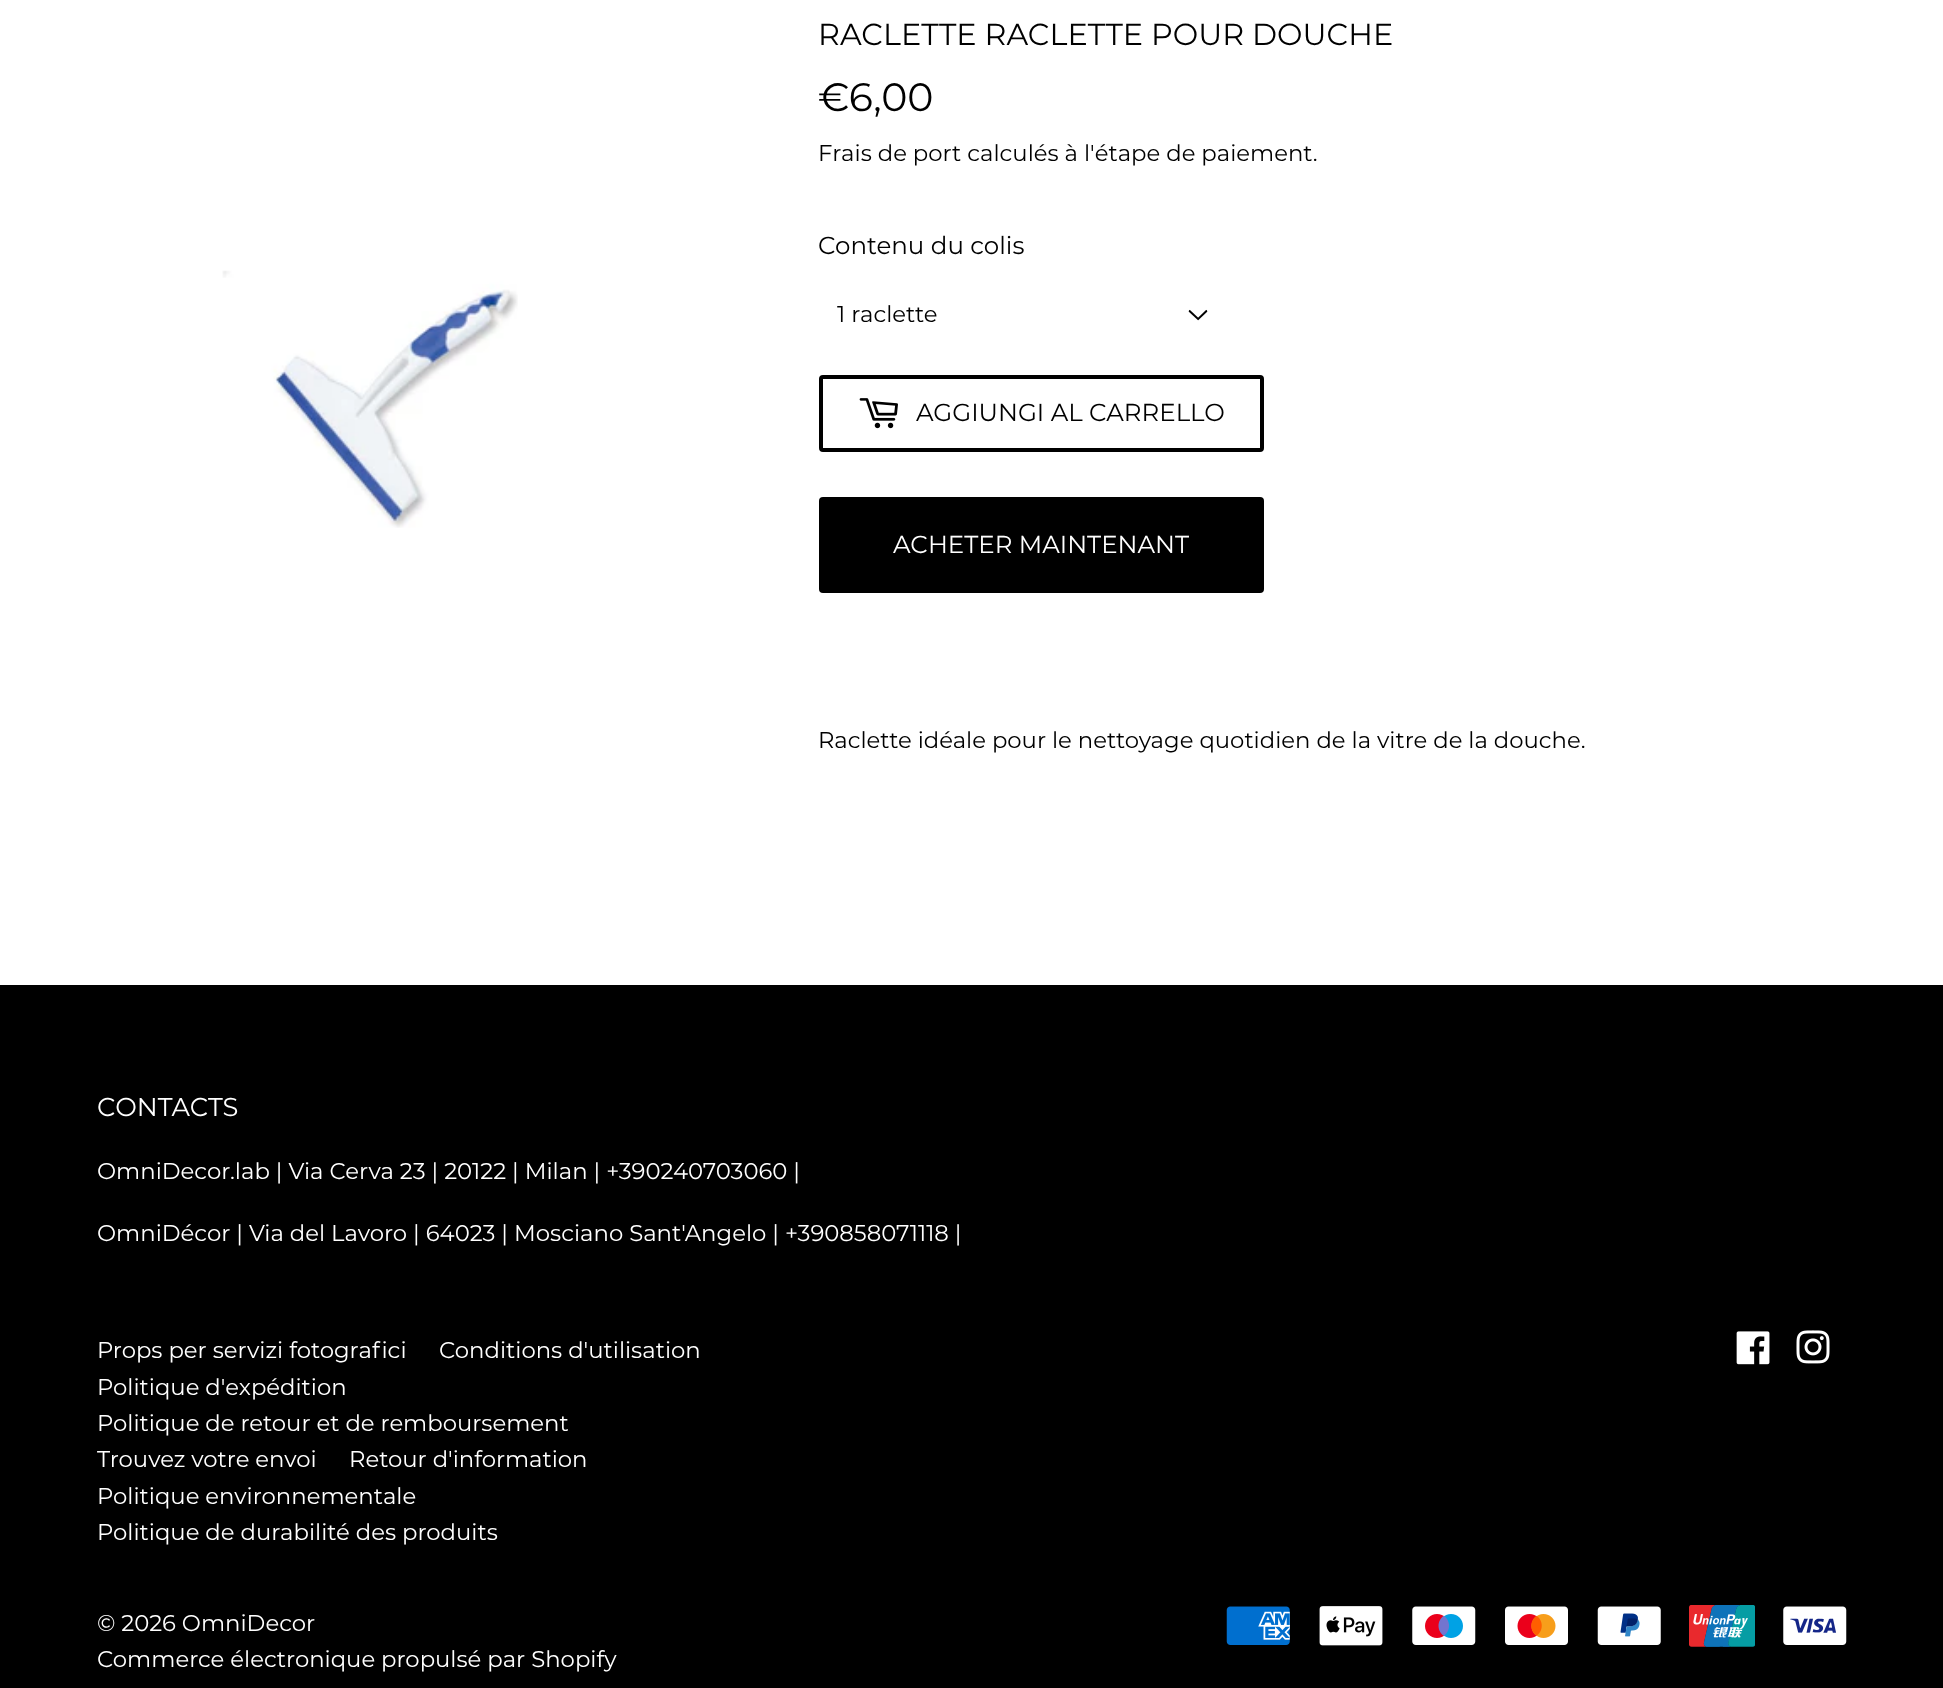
(async () => {
  const canvas = document.querySelector("canvas");
  canvas.width = 1943;
  canvas.height = 1688;
  const ctx = canvas.getContext("2d");
  ctx.miterLimit = 4;
  ctx.fontKerning = "normal";
  async function loadImage(src) {
    const img = new Image();
    img.src = src;
    await img.decode();
    return img;
  }

  ctx.fillStyle = "#ffffff";
  ctx.fillRect(0, 0, 1943, 1688);
  ctx.drawImage(await loadImage("img/1.png"), 222, 270, 296, 258);
  ctx.drawImage(await loadImage("img/2.png"), 1188, 309, 20, 12);
  ctx.beginPath();
  ctx.roundRect(821, 377, 441, 73, 2);
  ctx.strokeStyle = "#000000";
  ctx.lineWidth = 4;
  ctx.stroke();
  ctx.drawImage(await loadImage("img/3.png"), 859, 398, 39, 31);
  ctx.fillStyle = "#000000";
  ctx.beginPath();
  ctx.roundRect(819, 497, 445, 96, 4);
  ctx.fill();
  ctx.fillRect(0, 985, 1943, 703);
  ctx.drawImage(await loadImage("img/4.png"), 1736, 1331, 34, 34);
  ctx.drawImage(await loadImage("img/5.png"), 1796, 1330, 34, 34);
  ctx.drawImage(await loadImage("img/6.png"), 1226, 1606, 64, 39);
  ctx.drawImage(await loadImage("img/7.png"), 1319, 1606, 64, 40);
  ctx.drawImage(await loadImage("img/8.png"), 1412, 1606, 64, 39);
  ctx.drawImage(await loadImage("img/9.png"), 1505, 1606, 63, 39);
  ctx.drawImage(await loadImage("img/10.png"), 1597, 1606, 64, 39);
  ctx.drawImage(await loadImage("img/11.png"), 1689, 1605, 66, 42);
  ctx.drawImage(await loadImage("img/12.png"), 1783, 1606, 64, 39);
  ctx.font = "30.3px Montserrat";
  ctx.fillText("RACLETTE RACLETTE POUR DOUCHE", 818, 45);
  ctx.font = "39.5px Montserrat";
  ctx.fillText("€6,00", 818, 111);
  ctx.font = "22.75px Montserrat";
  ctx.fillText("Frais de port calculés à l'étape de paiement.", 818, 161);
  ctx.font = "24.5px Montserrat";
  ctx.fillText("Contenu du colis", 818, 254);
  ctx.font = "22.75px Montserrat";
  ctx.fillText("1 raclette", 837, 322);
  ctx.font = "24.5px Montserrat";
  ctx.fillText("AGGIUNGI AL CARRELLO", 916, 421);
  ctx.fillStyle = "#ffffff";
  ctx.fillText("ACHETER MAINTENANT", 893, 553);
  ctx.font = "22.75px Montserrat";
  ctx.fillStyle = "#000000";
  ctx.fillText("Raclette idéale pour le nettoyage quotidien de la vitre de la douche.", 818, 748);
  ctx.font = "25.75px Montserrat";
  ctx.fillStyle = "#ffffff";
  ctx.fillText("CONTACTS", 97, 1116);
  ctx.font = "22.75px Montserrat";
  for (const [text, x, y] of [
    ["OmniDecor.lab | Via Cerva 23 | 20122 | Milan | +390240703060 |", 97, 1179],
    ["OmniDécor | Via del Lavoro | 64023 | Mosciano Sant'Angelo | +390858071118 |", 97, 1241],
    ["Props per servizi fotografici", 97, 1358],
    ["Conditions d'utilisation", 439, 1358],
    ["Politique d'expédition", 97, 1395],
    ["Politique de retour et de remboursement", 97, 1431],
    ["Trouvez votre envoi", 97, 1467],
    ["Retour d'information", 349, 1467],
    ["Politique environnementale", 97, 1504],
    ["Politique de durabilité des produits", 97, 1540],
    ["© 2026 OmniDecor", 97, 1631],
    ["Commerce électronique propulsé par Shopify", 97, 1667],
  ]) {
    ctx.fillText(text, x, y);
  }
})();
